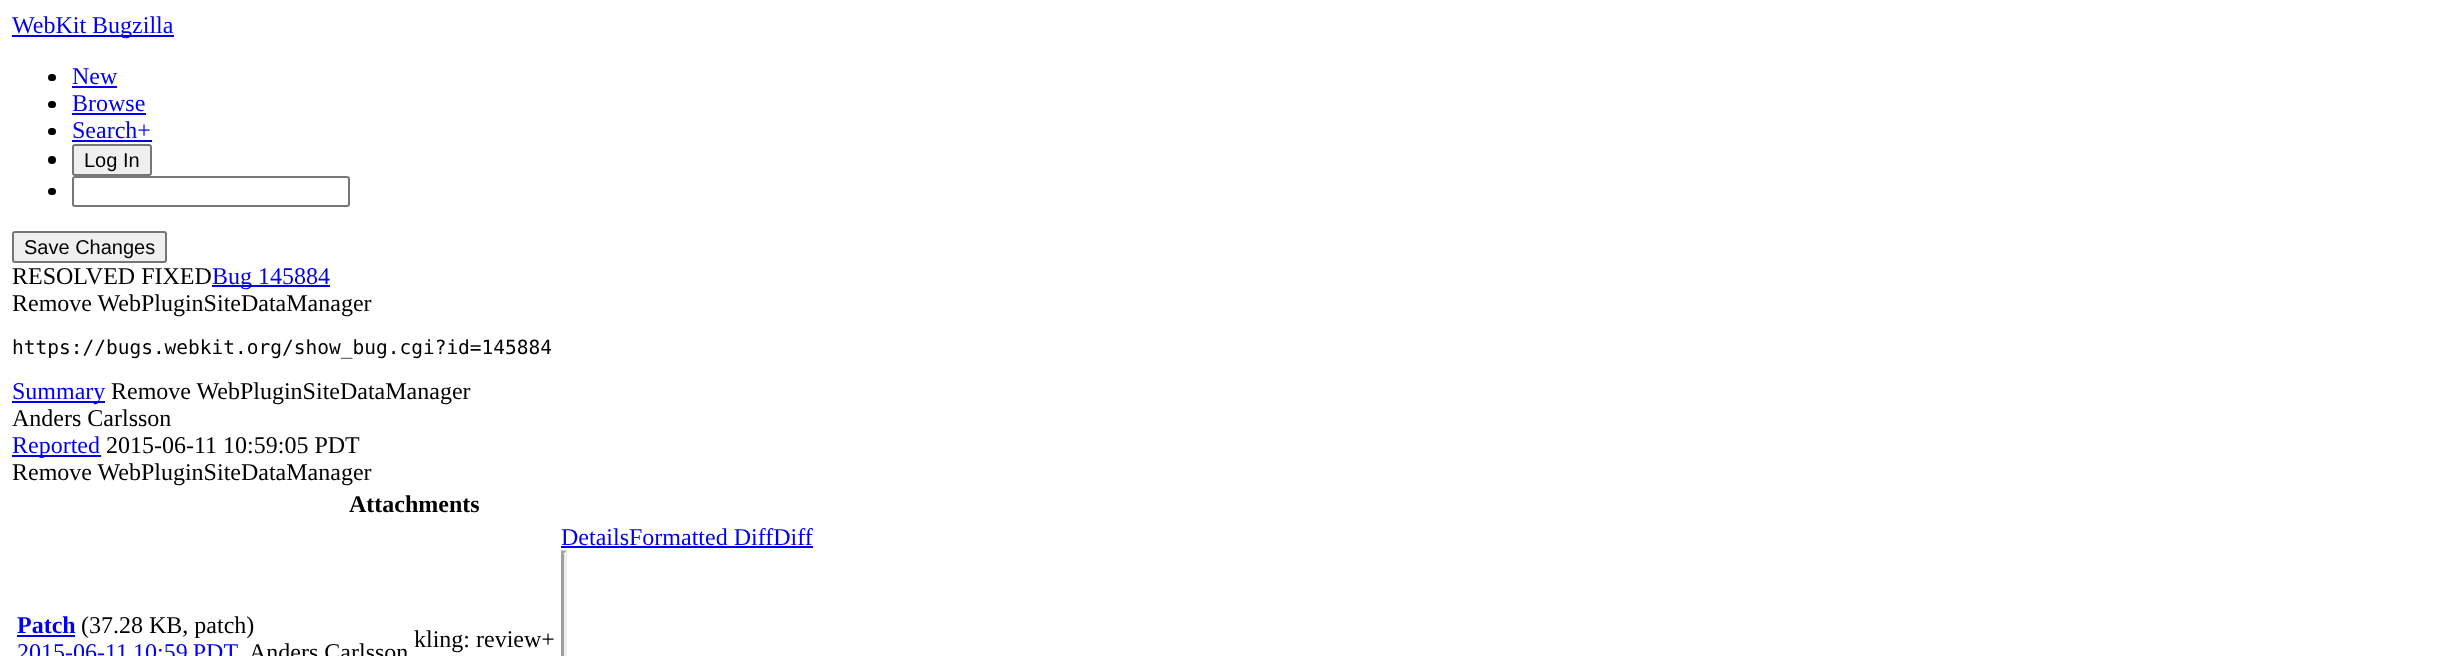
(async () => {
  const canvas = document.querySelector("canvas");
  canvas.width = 2450;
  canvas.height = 656;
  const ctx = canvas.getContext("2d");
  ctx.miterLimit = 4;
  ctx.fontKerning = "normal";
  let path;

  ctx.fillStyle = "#ffffff";
  ctx.fillRect(0, 0, 2450, 656);
  ctx.fillStyle = "#0000ee";
  ctx.fillRect(12, 35, 162, 2);
  ctx.fillStyle = "#000000";
  ctx.beginPath();
  ctx.roundRect(48, 74, 8, 7, 3.5);
  ctx.fill();
  ctx.fillStyle = "#0000ee";
  ctx.fillRect(72, 86, 45, 2);
  ctx.fillStyle = "#000000";
  ctx.beginPath();
  ctx.roundRect(48, 101, 8, 7, 3.5);
  ctx.fill();
  ctx.fillStyle = "#0000ee";
  ctx.fillRect(72, 113, 74, 2);
  ctx.fillStyle = "#000000";
  ctx.beginPath();
  ctx.roundRect(48, 128, 8, 7, 3.5);
  ctx.fill();
  ctx.fillStyle = "#0000ee";
  ctx.fillRect(72, 140, 80, 2);
  ctx.fillStyle = "#000000";
  ctx.beginPath();
  ctx.arc(52, 160, 4, 0, Math.PI * 2);
  ctx.fill();
  ctx.fillStyle = "#efefef";
  ctx.beginPath();
  ctx.roundRect(73, 145, 78, 30, 2);
  ctx.fill();
  ctx.strokeStyle = "#767676";
  ctx.lineWidth = 2;
  ctx.stroke();
  ctx.fillStyle = "#000000";
  ctx.beginPath();
  ctx.roundRect(48, 188, 8, 7, 3.5);
  ctx.fill();
  ctx.beginPath();
  ctx.roundRect(73, 177, 276, 29, 2);
  ctx.stroke();
  ctx.fillStyle = "#efefef";
  ctx.beginPath();
  ctx.roundRect(13, 232, 153, 30, 2);
  ctx.fill();
  ctx.stroke();
  for (const [x, y, w, h, color] of [
    [212, 285, 118, 2, "#0000ee"],
    [12, 401, 93, 2, "#0000ee"],
    [12, 455, 89, 2, "#0000ee"],
    [561, 546, 252, 2, "#0000ee"],
  ]) {
    ctx.fillStyle = color;
    ctx.fillRect(x, y, w, h);
  }
  ctx.fillStyle = "#9f9f9f";
  path = new Path2D("M561 550.5H567L564 553.5Z");
  ctx.fill(path);
  path = new Path2D("M561 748V550L564 554V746Z");
  ctx.fill(path);
  ctx.fillStyle = "#eeeeee";
  path = new Path2D("M567 550V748L564 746V554Z");
  ctx.fill(path);
  ctx.fillStyle = "#0000ee";
  ctx.fillRect(17, 635, 58, 2);
  ctx.font = "24px Liberation Serif";
  for (const [text, x, y] of [
    ["WebKit Bugzilla", 12, 33],
    ["New", 72, 84],
    ["Browse", 72, 111],
    ["Search+", 72, 138],
  ]) {
    ctx.fillText(text, x, y);
  }
  ctx.font = "20px Liberation Sans";
  ctx.fillStyle = "#000000";
  ctx.fillText("Log In", 84, 167);
  ctx.fillText("Save Changes", 24, 254);
  ctx.font = "24px Liberation Serif";
  ctx.fillText("RESOLVED FIXED", 12, 284);
  ctx.fillStyle = "#0000ee";
  ctx.fillText("Bug 145884", 212, 284);
  ctx.fillStyle = "#000000";
  ctx.fillText("Remove WebPluginSiteDataManager", 12, 311);
  ctx.font = "19.5px DejaVu Sans Mono";
  ctx.fillText("https://bugs.webkit.org/show_bug.cgi?id=145884", 12, 354);
  ctx.font = "24px Liberation Serif";
  ctx.fillStyle = "#0000ee";
  ctx.fillText("Summary", 12, 399);
  ctx.fillStyle = "#000000";
  ctx.fillText("Remove WebPluginSiteDataManager", 111, 399);
  ctx.fillText("Anders Carlsson", 12, 426);
  ctx.fillStyle = "#0000ee";
  ctx.fillText("Reported", 12, 453);
  ctx.fillStyle = "#000000";
  ctx.fillText("2015-06-11 10:59:05 PDT", 106, 453);
  ctx.fillText("Remove WebPluginSiteDataManager", 12, 480);
  ctx.font = "bold 24px Liberation Serif";
  ctx.fillText("Attachments", 349, 512);
  ctx.font = "24px Liberation Serif";
  ctx.fillStyle = "#0000ee";
  ctx.fillText("DetailsFormatted DiffDiff", 561, 545);
  ctx.font = "bold 24px Liberation Serif";
  ctx.fillText("Patch", 17, 633);
  ctx.font = "24px Liberation Serif";
  ctx.fillStyle = "#000000";
  ctx.fillText("(37.28 KB, patch)", 81, 633);
  ctx.wordSpacing = "-1px";
  ctx.fillStyle = "#0000ee";
  ctx.fillText("2015-06-11 10:59 PDT", 17, 660);
  ctx.wordSpacing = "0px";
  ctx.fillStyle = "#000000";
  ctx.fillText("Anders Carlsson", 249, 660);
  ctx.fillText("kling: review+", 414, 647);
})();
